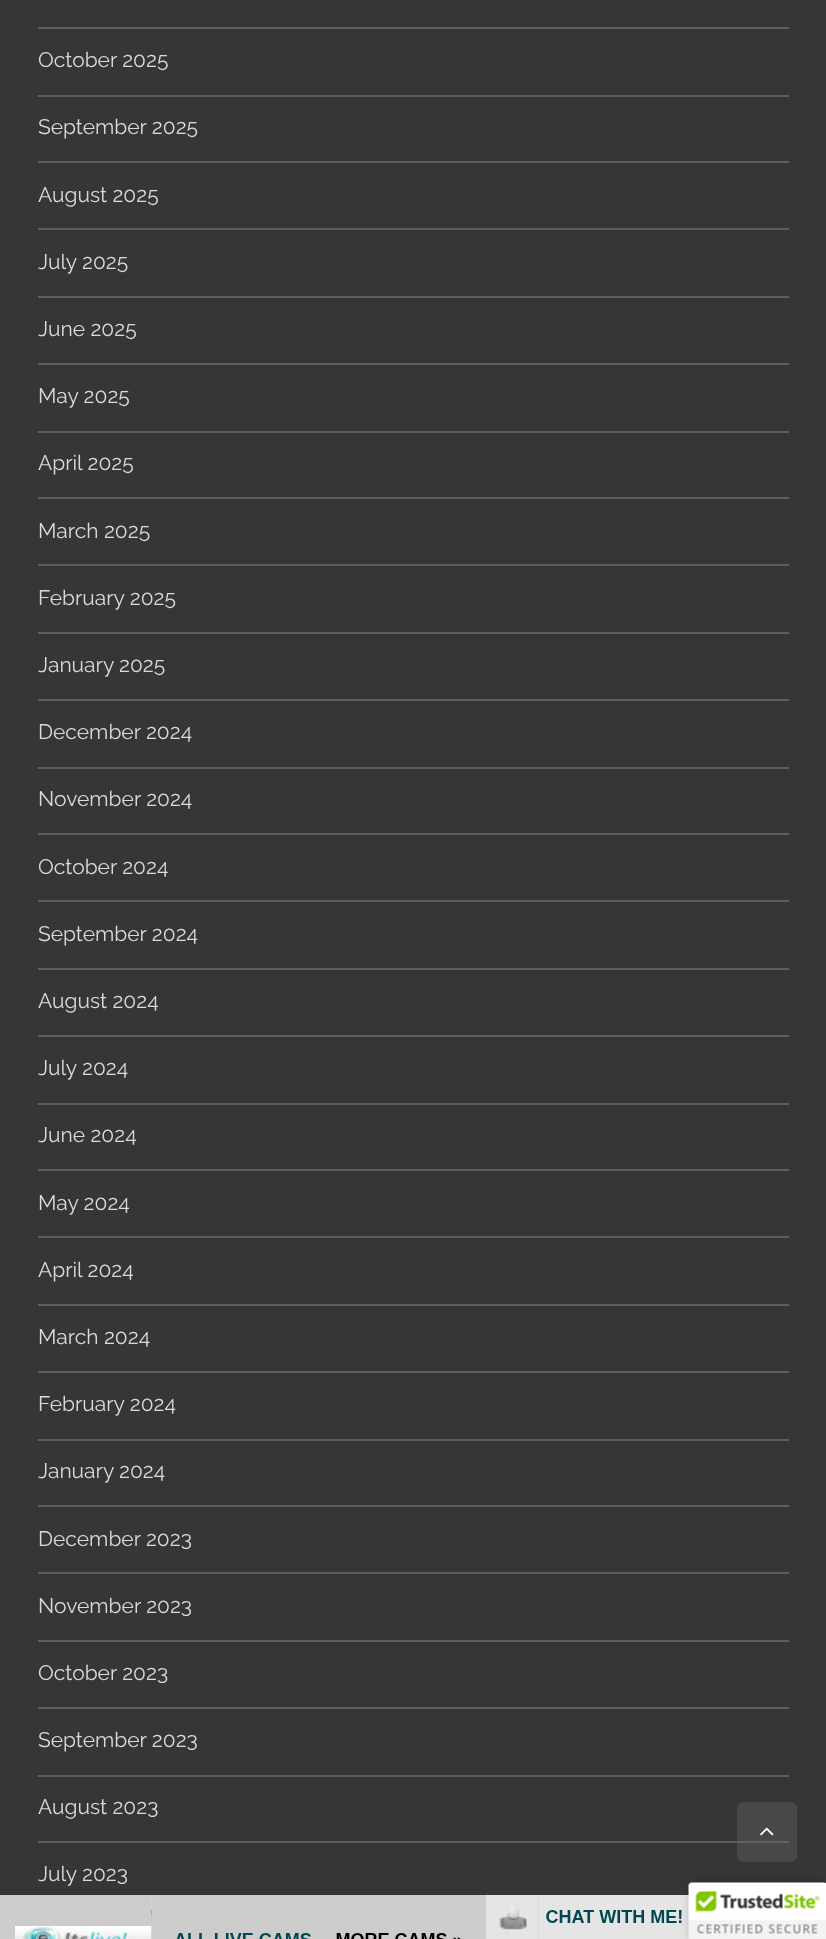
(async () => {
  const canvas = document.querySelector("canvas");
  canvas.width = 826;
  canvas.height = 1939;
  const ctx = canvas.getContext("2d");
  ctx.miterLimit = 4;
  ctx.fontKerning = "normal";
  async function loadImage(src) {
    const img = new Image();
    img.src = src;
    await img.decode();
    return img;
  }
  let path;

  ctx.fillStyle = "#363636";
  ctx.fillRect(0, 0, 826, 1939);
  for (const [x, y, w, h, color] of [
    [38, 27, 751, 2, "#5e5e5e"],
    [38, 95, 751, 2, "#5e5e5e"],
    [38, 161, 751, 2, "#5e5e5e"],
    [38, 228, 751, 2, "#5e5e5e"],
    [38, 296, 751, 2, "#5e5e5e"],
    [38, 363, 751, 2, "#5e5e5e"],
    [38, 431, 751, 2, "#5e5e5e"],
    [38, 497, 751, 2, "#5e5e5e"],
    [38, 564, 751, 2, "#5e5e5e"],
    [38, 632, 751, 2, "#5e5e5e"],
    [38, 699, 751, 2, "#5e5e5e"],
    [38, 767, 751, 2, "#5e5e5e"],
    [38, 833, 751, 2, "#5e5e5e"],
    [38, 900, 751, 2, "#5e5e5e"],
    [38, 968, 751, 2, "#5e5e5e"],
    [38, 1035, 751, 2, "#5e5e5e"],
    [38, 1103, 751, 2, "#5e5e5e"],
    [38, 1169, 751, 2, "#5e5e5e"],
    [38, 1236, 751, 2, "#5e5e5e"],
    [38, 1304, 751, 2, "#5e5e5e"],
    [38, 1371, 751, 2, "#5e5e5e"],
    [38, 1439, 751, 2, "#5e5e5e"],
    [38, 1505, 751, 2, "#5e5e5e"],
    [38, 1572, 751, 2, "#5e5e5e"],
    [38, 1640, 751, 2, "#5e5e5e"],
    [38, 1707, 751, 2, "#5e5e5e"],
    [38, 1775, 751, 2, "#5e5e5e"],
    [38, 1841, 751, 2, "#5e5e5e"],
  ]) {
    ctx.fillStyle = color;
    ctx.fillRect(x, y, w, h);
  }
  ctx.fillStyle = "rgba(100, 100, 100, 0.4)";
  ctx.beginPath();
  ctx.roundRect(737, 1802, 60, 60, 6);
  ctx.fill();
  ctx.drawImage(await loadImage("img/1.png"), 760, 1827, 14, 9);
  ctx.drawImage(await loadImage("img/2.png"), 0, 1895, 689, 44);
  ctx.fillStyle = "rgba(0, 0, 0, 0.2)";
  ctx.filter = "blur(4px)";
  ctx.beginPath();
  ctx.roundRect(689, 1883, 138, 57, 3);
  ctx.fill();
  ctx.filter = "none";
  ctx.fillStyle = "#ffffff";
  path = new Path2D("M692 1883H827V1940H689V1886C689 1884.5 690.5 1883 692 1883Z");
  ctx.fill(path);
  ctx.drawImage(await loadImage("img/3.png"), 688, 1882, 138, 57);
  ctx.font = "100 21px Raleway";
  ctx.fillStyle = "#dadada";
  for (const [text, x, y] of [
    ["October 2025", 38, 67],
    ["September 2025", 38, 134],
    ["August 2025", 38, 202],
    ["July 2025", 38, 269],
    ["June 2025", 38, 336],
    ["May 2025", 38, 403],
    ["April 2025", 38, 470],
    ["March 2025", 38, 538],
    ["February 2025", 38, 605],
    ["January 2025", 38, 672],
    ["December 2024", 38, 739],
    ["November 2024", 38, 806],
    ["October 2024", 38, 874],
    ["September 2024", 38, 941],
    ["August 2024", 38, 1008],
    ["July 2024", 38, 1075],
    ["June 2024", 38, 1142],
    ["May 2024", 38, 1210],
    ["April 2024", 38, 1277],
    ["March 2024", 38, 1344],
    ["February 2024", 38, 1411],
    ["January 2024", 38, 1478],
    ["December 2023", 38, 1546],
    ["November 2023", 38, 1613],
    ["October 2023", 38, 1680],
    ["September 2023", 38, 1747],
    ["August 2023", 38, 1814],
    ["July 2023", 38, 1881],
  ]) {
    ctx.fillText(text, x, y);
  }
})();
